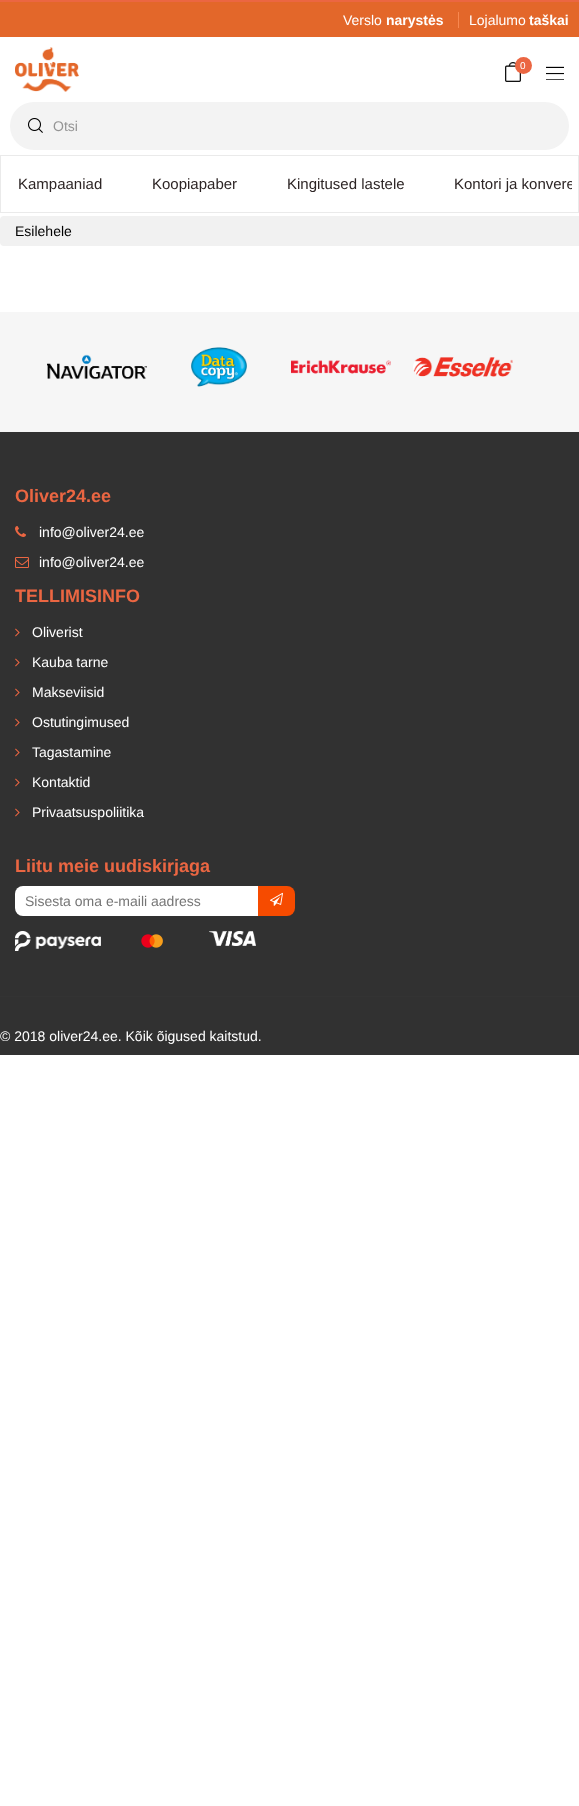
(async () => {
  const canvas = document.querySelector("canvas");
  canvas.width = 579;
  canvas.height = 1806;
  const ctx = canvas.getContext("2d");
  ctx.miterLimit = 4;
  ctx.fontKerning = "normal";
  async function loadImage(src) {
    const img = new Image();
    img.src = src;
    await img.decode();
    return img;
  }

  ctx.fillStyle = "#ffffff";
  ctx.fillRect(0, 0, 579, 1806);
  for (const [x, y, w, h, color] of [
    [0, 2, 579, 35, "#e3672a"],
    [0, 0, 579, 2, "#eb6642"],
    [458, 12, 1, 16, "#f88850"],
  ]) {
    ctx.fillStyle = color;
    ctx.fillRect(x, y, w, h);
  }
  ctx.drawImage(await loadImage("img/1.png"), 15, 47, 64, 45);
  ctx.drawImage(await loadImage("img/2.png"), 505, 62, 16, 20);
  ctx.fillStyle = "#eb6642";
  ctx.beginPath();
  ctx.arc(523.5, 65.5, 8.5, 0, Math.PI * 2);
  ctx.fill();
  ctx.drawImage(await loadImage("img/3.png"), 546, 66, 18, 14);
  ctx.fillStyle = "#f3f3f3";
  ctx.beginPath();
  ctx.roundRect(10, 102, 559, 48, 24);
  ctx.fill();
  ctx.drawImage(await loadImage("img/4.png"), 28, 118, 15, 15);
  ctx.strokeStyle = "#eaeaea";
  ctx.strokeRect(0.5, 155.5, 578, 57);
  ctx.fillStyle = "#f1f1f1";
  ctx.beginPath();
  ctx.roundRect(0, 216, 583, 30, 4);
  ctx.fill();
  ctx.fillStyle = "#f6f6f6";
  ctx.fillRect(0, 312, 579, 120);
  ctx.drawImage(await loadImage("img/5.png"), 47, 354, 100, 26);
  ctx.drawImage(await loadImage("img/6.png"), 191, 347, 56, 40);
  ctx.drawImage(await loadImage("img/7.png"), 291, 360, 100, 14);
  ctx.drawImage(await loadImage("img/8.png"), 413, 357, 100, 20);
  ctx.fillStyle = "#313131";
  ctx.fillRect(0, 432, 579, 564);
  ctx.drawImage(await loadImage("img/9.png"), 15, 526, 11, 11);
  ctx.drawImage(await loadImage("img/10.png"), 15, 557, 14, 11);
  ctx.drawImage(await loadImage("img/11.png"), 15, 628, 5, 9);
  ctx.drawImage(await loadImage("img/11.png"), 15, 658, 5, 9);
  ctx.drawImage(await loadImage("img/11.png"), 15, 688, 5, 9);
  ctx.drawImage(await loadImage("img/11.png"), 15, 718, 5, 9);
  ctx.drawImage(await loadImage("img/11.png"), 15, 748, 5, 9);
  ctx.drawImage(await loadImage("img/11.png"), 15, 778, 5, 9);
  ctx.drawImage(await loadImage("img/11.png"), 15, 808, 5, 9);
  ctx.fillStyle = "#ffffff";
  ctx.beginPath();
  ctx.roundRect(15, 886, 243, 30, [8, 0, 0, 8]);
  ctx.fill();
  ctx.fillStyle = "#f64b00";
  ctx.beginPath();
  ctx.roundRect(258, 886, 37, 30, [0, 8, 8, 0]);
  ctx.fill();
  ctx.drawImage(await loadImage("img/12.png"), 270, 892, 13, 14);
  ctx.drawImage(await loadImage("img/13.png"), 15, 931, 86, 20);
  ctx.drawImage(await loadImage("img/14.png"), 141, 934, 22, 14);
  ctx.drawImage(await loadImage("img/15.png"), 209, 931, 47, 15);
  ctx.fillStyle = "#313131";
  ctx.fillRect(0, 997, 579, 58);
  ctx.fillStyle = "#333333";
  ctx.fillRect(0, 996, 579, 1);
  ctx.font = "14px Liberation Sans";
  ctx.fillStyle = "#ffffff";
  ctx.fillText("Verslo", 343, 25);
  ctx.font = "bold 14px Liberation Sans";
  ctx.fillText("narystės", 386, 25);
  ctx.font = "14px Liberation Sans";
  ctx.fillText("Lojalumo", 469, 25);
  ctx.font = "bold 14px Liberation Sans";
  ctx.fillText("taškai", 529, 25);
  ctx.font = "10px Liberation Sans";
  ctx.fillText("0", 520, 69);
  ctx.font = "14px Liberation Sans";
  ctx.fillStyle = "#949494";
  ctx.fillText("Otsi", 53, 131);
  ctx.font = "15px Liberation Sans";
  ctx.fillStyle = "#2d2525";
  for (const [text, x, y] of [
    ["Kampaaniad", 18, 189],
    ["Koopiapaber", 152, 189],
    ["Kingitused lastele", 287, 189],
  ]) {
    ctx.fillText(text, x, y);
  }
  ctx.save();
  ctx.beginPath();
  ctx.rect(0, 156, 572, 55);
  ctx.clip();
  ctx.fillText("Kontori ja konvere", 454, 189);
  ctx.restore();
  ctx.font = "14px Liberation Sans";
  ctx.fillStyle = "#000000";
  ctx.fillText("Esilehele", 15, 236);
  ctx.font = "bold 18px Liberation Sans";
  ctx.fillStyle = "#eb6642";
  ctx.fillText("Oliver24.ee", 15, 502);
  ctx.font = "14px Liberation Sans";
  ctx.fillStyle = "#ffffff";
  ctx.fillText("info@oliver24.ee", 39, 537);
  ctx.fillText("info@oliver24.ee", 39, 567);
  ctx.font = "bold 18px Liberation Sans";
  ctx.fillStyle = "#eb6642";
  ctx.fillText("TELLIMISINFO", 15, 602);
  ctx.font = "14px Liberation Sans";
  ctx.fillStyle = "#ffffff";
  for (const [text, x, y] of [
    ["Oliverist", 32, 637],
    ["Kauba tarne", 32, 667],
    ["Makseviisid", 32, 697],
    ["Ostutingimused", 32, 727],
    ["Tagastamine", 32, 757],
    ["Kontaktid", 32, 787],
    ["Privaatsuspoliitika", 32, 817],
  ]) {
    ctx.fillText(text, x, y);
  }
  ctx.font = "bold 18px Liberation Sans";
  ctx.fillStyle = "#eb6642";
  ctx.fillText("Liitu meie uudiskirjaga", 15, 872);
  ctx.font = "14px Liberation Sans";
  ctx.fillStyle = "#757575";
  ctx.fillText("Sisesta oma e-maili aadress", 25, 906);
  ctx.fillStyle = "#ffffff";
  ctx.fillText("© 2018 oliver24.ee. Kõik õigused kaitstud.", 0, 1041);
})();
